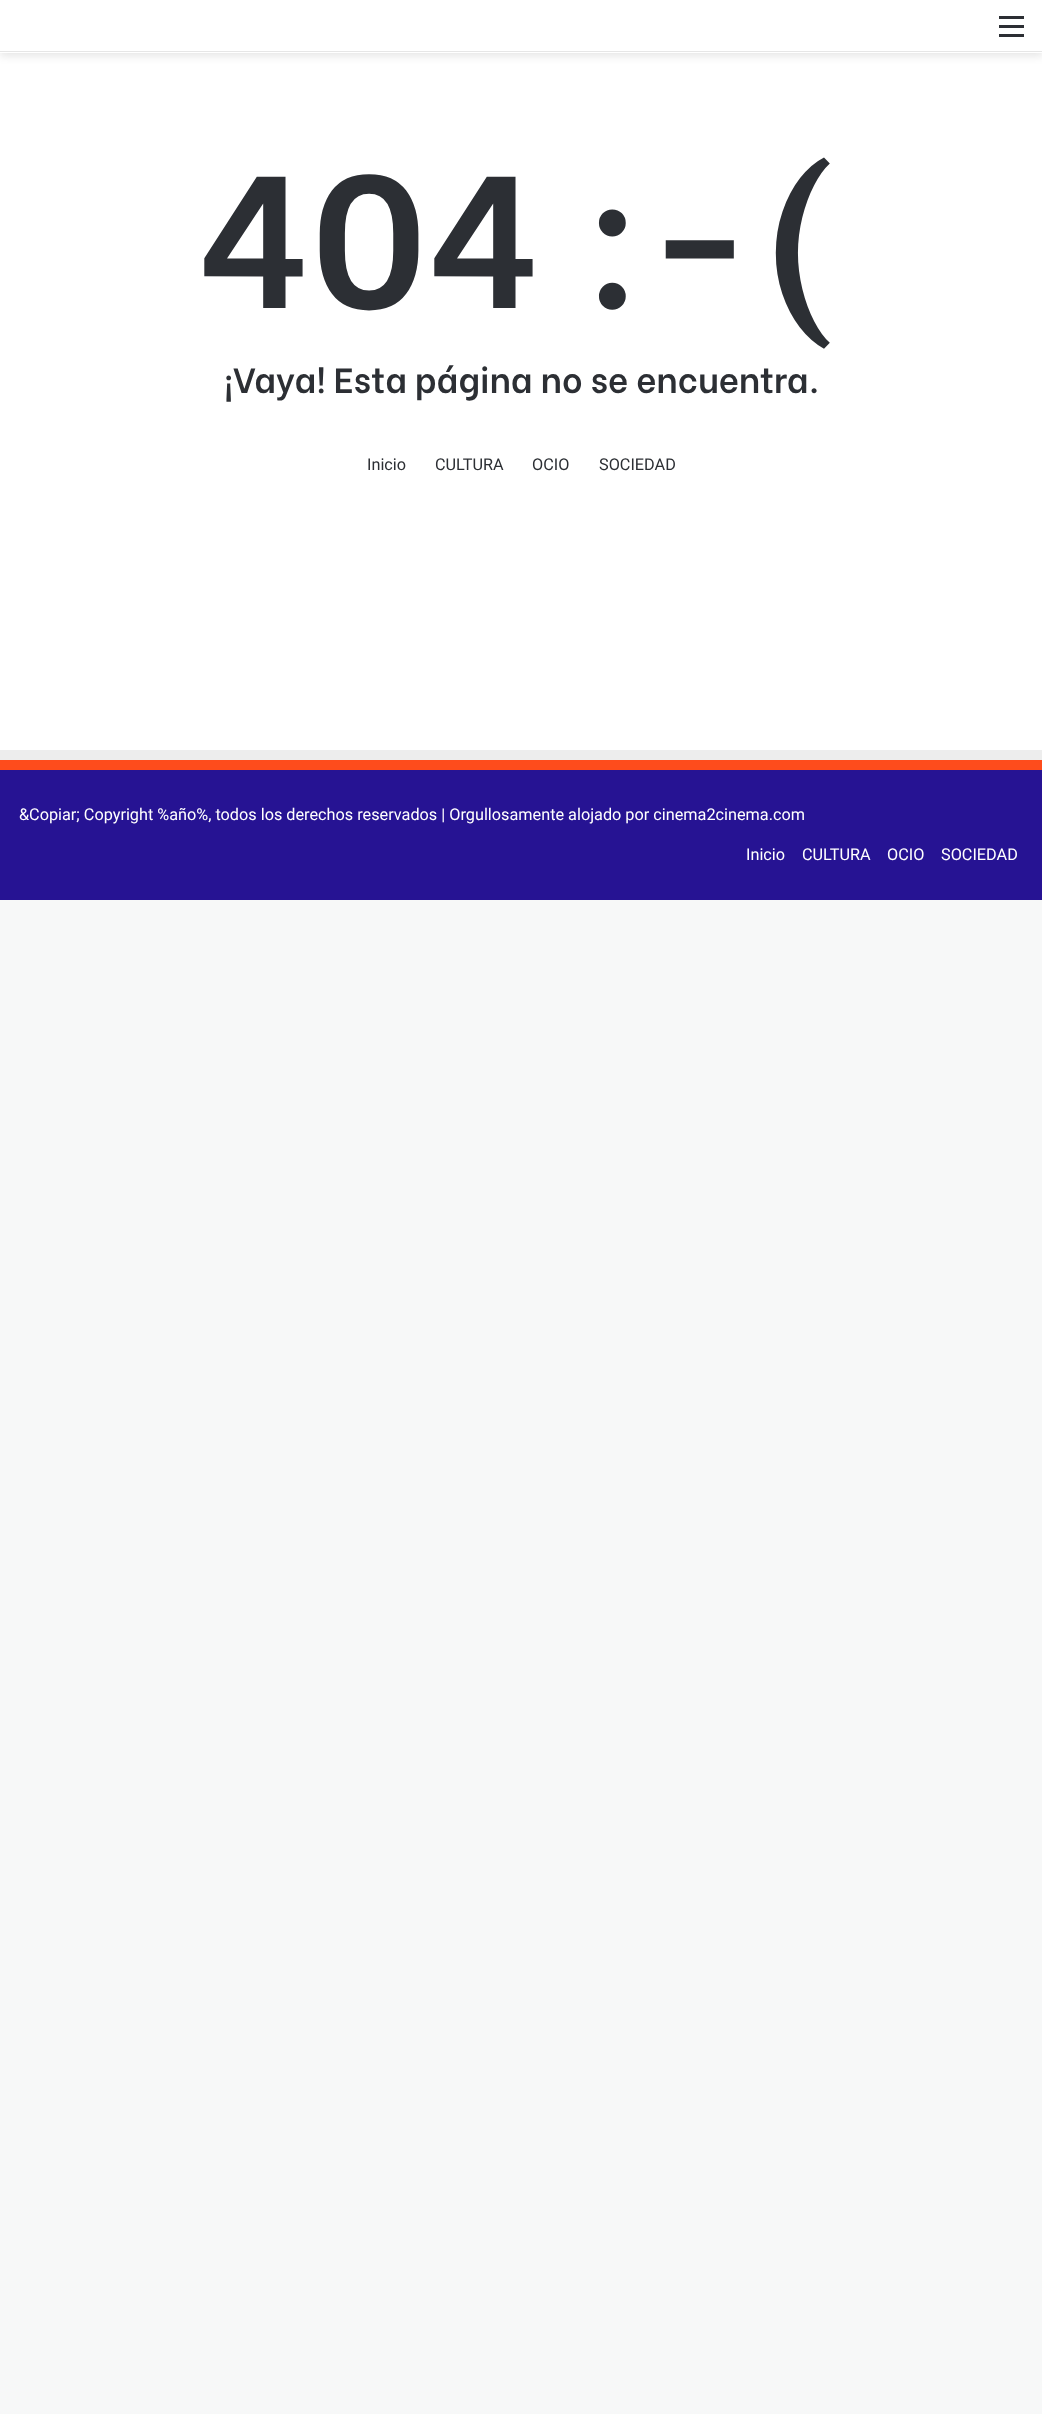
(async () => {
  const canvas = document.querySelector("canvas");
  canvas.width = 1042;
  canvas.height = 2414;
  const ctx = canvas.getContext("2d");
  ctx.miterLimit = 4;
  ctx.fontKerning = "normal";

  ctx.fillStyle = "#f7f8f8";
  ctx.fillRect(0, 0, 1042, 2414);
  ctx.fillStyle = "#ffffff";
  ctx.fillRect(0, 53, 1042, 697);
  ctx.fillStyle = "rgba(0, 0, 0, 0.1)";
  ctx.filter = "blur(4.5px)";
  ctx.beginPath();
  ctx.rect(0, 4, 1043, 52);
  ctx.fill();
  ctx.filter = "none";
  for (const [x, y, w, h, color] of [
    [0, 0, 1042, 53, "#ffffff"],
    [0, 51, 1042, 1, "#e6e6e6"],
    [999, 25, 25, 3, "#2c2f34"],
    [999, 16, 25, 3, "#2c2f34"],
    [999, 34, 25, 3, "#2c2f34"],
    [0, 750, 1042, 10, "#ededed"],
    [0, 760, 1042, 10, "#fe4c1c"],
    [0, 770, 1042, 130, "#261393"],
  ]) {
    ctx.fillStyle = color;
    ctx.fillRect(x, y, w, h);
  }
  ctx.font = "600 187.5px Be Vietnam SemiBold";
  ctx.fillStyle = "#2c2f34";
  ctx.fillText("404 :-(", 197, 308);
  ctx.font = "600 35px Be Vietnam SemiBold";
  ctx.fillText("¡Vaya! Esta página no se encuentra.", 224, 393);
  ctx.font = "16.25px Roboto";
  for (const [text, x, y] of [
    ["Inicio", 367, 470],
    ["CULTURA", 435, 470],
    ["OCIO", 532, 470],
    ["SOCIEDAD", 599, 470],
  ]) {
    ctx.fillText(text, x, y);
  }
  ctx.fillStyle = "#ffffff";
  for (const [text, x, y] of [
    ["&Copiar; Copyright %año%, todos los derechos reservados | Orgullosamente alojado por cinema2cinema.com", 19, 820],
    ["Inicio", 746, 860],
    ["CULTURA", 802, 860],
    ["OCIO", 887, 860],
    ["SOCIEDAD", 941, 860],
  ]) {
    ctx.fillText(text, x, y);
  }
})();
